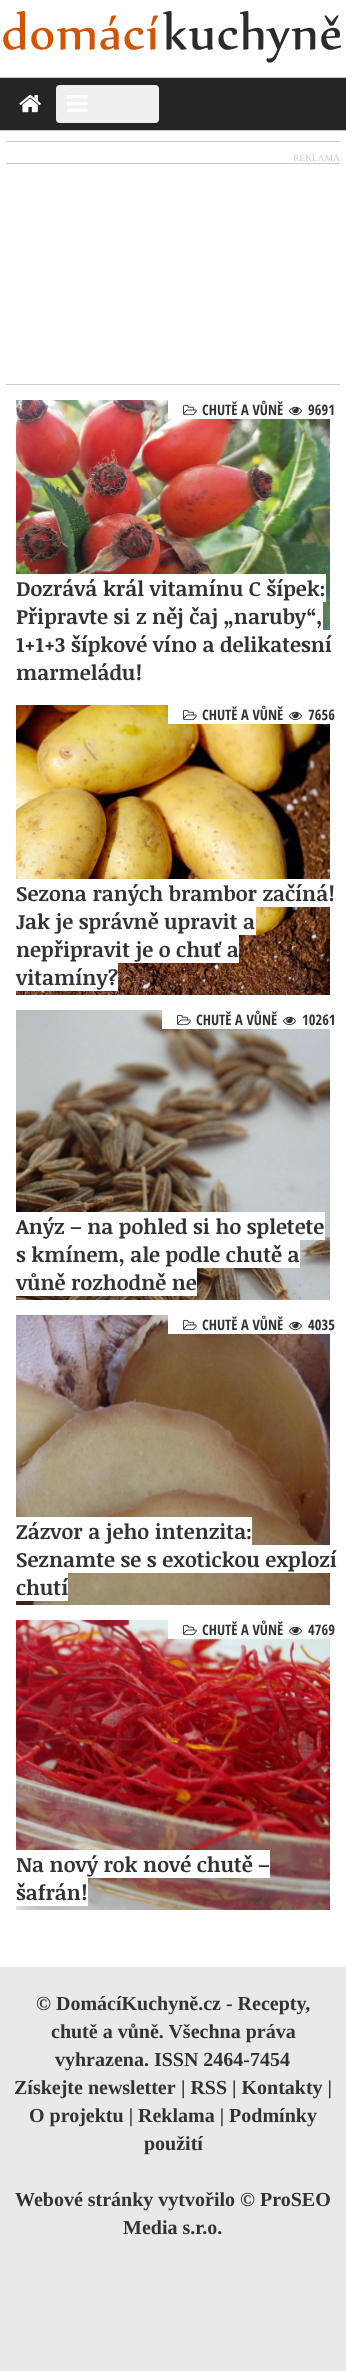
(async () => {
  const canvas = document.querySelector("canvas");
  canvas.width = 346;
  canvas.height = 2371;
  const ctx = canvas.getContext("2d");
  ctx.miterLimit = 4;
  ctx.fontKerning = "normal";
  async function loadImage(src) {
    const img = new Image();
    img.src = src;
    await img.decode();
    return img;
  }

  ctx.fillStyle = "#e9e9e9";
  ctx.fillRect(0, 0, 346, 2371);
  ctx.fillStyle = "#ffffff";
  ctx.fillRect(0, 0, 346, 1967);
  ctx.drawImage(await loadImage("img/1.png"), 3, 11, 339, 52);
  for (const [x, y, w, h, color] of [
    [0, 78, 346, 52, "#252525"],
    [0, 77, 346, 1, "#cccccc"],
    [0, 130, 346, 1, "#cccccc"],
  ]) {
    ctx.fillStyle = color;
    ctx.fillRect(x, y, w, h);
  }
  ctx.drawImage(await loadImage("img/2.png"), 19, 95, 22, 18);
  ctx.fillStyle = "#efefef";
  ctx.beginPath();
  ctx.roundRect(56, 85, 103, 38, 4);
  ctx.fill();
  ctx.drawImage(await loadImage("img/3.png"), 67, 95, 21, 17);
  for (const [x, y, w, h, color] of [
    [6, 141, 334, 1, "#cccccc"],
    [6, 384, 334, 1, "#cccccc"],
    [6, 163, 334, 1, "#cccccc"],
  ]) {
    ctx.fillStyle = color;
    ctx.fillRect(x, y, w, h);
  }
  ctx.drawImage(await loadImage("img/6.png"), 16, 400, 314, 230);
  ctx.fillStyle = "#ffffff";
  ctx.fillRect(168, 400, 162, 19);
  ctx.drawImage(await loadImage("img/4.png"), 183, 404, 14, 12);
  ctx.drawImage(await loadImage("img/5.png"), 289, 406, 13, 10);
  ctx.fillRect(16, 574, 310, 28);
  ctx.fillRect(16, 602, 307, 28);
  ctx.drawImage(await loadImage("img/7.png"), 16, 705, 314, 290);
  ctx.fillRect(168, 705, 162, 19);
  ctx.drawImage(await loadImage("img/4.png"), 183, 709, 14, 12);
  ctx.drawImage(await loadImage("img/5.png"), 289, 711, 13, 10);
  for (const [x, y, w, h, color] of [
    [16, 879, 314, 28, "#ffffff"],
    [16, 907, 240, 28, "#ffffff"],
    [16, 935, 223, 28, "#ffffff"],
    [16, 963, 102, 28, "#ffffff"],
  ]) {
    ctx.fillStyle = color;
    ctx.fillRect(x, y, w, h);
  }
  ctx.drawImage(await loadImage("img/8.png"), 16, 1010, 314, 290);
  ctx.fillRect(162, 1010, 168, 19);
  ctx.drawImage(await loadImage("img/4.png"), 177, 1014, 14, 12);
  ctx.drawImage(await loadImage("img/5.png"), 283, 1016, 13, 10);
  for (const [x, y, w, h, color] of [
    [16, 1212, 309, 28, "#ffffff"],
    [16, 1240, 284, 28, "#ffffff"],
    [16, 1268, 181, 28, "#ffffff"],
  ]) {
    ctx.fillStyle = color;
    ctx.fillRect(x, y, w, h);
  }
  ctx.drawImage(await loadImage("img/9.png"), 16, 1315, 314, 290);
  ctx.fillRect(168, 1315, 162, 19);
  ctx.drawImage(await loadImage("img/4.png"), 183, 1319, 14, 12);
  ctx.drawImage(await loadImage("img/5.png"), 289, 1321, 13, 10);
  for (const [x, y, w, h, color] of [
    [16, 1517, 236, 28, "#ffffff"],
    [16, 1545, 314, 28, "#ffffff"],
    [16, 1573, 52, 28, "#ffffff"],
  ]) {
    ctx.fillStyle = color;
    ctx.fillRect(x, y, w, h);
  }
  ctx.drawImage(await loadImage("img/10.png"), 16, 1620, 314, 290);
  ctx.fillRect(168, 1620, 162, 19);
  ctx.drawImage(await loadImage("img/4.png"), 183, 1624, 14, 12);
  ctx.drawImage(await loadImage("img/5.png"), 289, 1626, 13, 10);
  ctx.fillRect(16, 1850, 254, 28);
  ctx.fillRect(16, 1878, 72, 28);
  ctx.font = "9.5px Liberation Serif";
  ctx.fillStyle = "#cccccc";
  ctx.fillText("REKLAMA", 293, 161);
  ctx.font = "bold 14.5px Open Sans Condensed";
  ctx.fillStyle = "#333333";
  ctx.fillText("CHUTĚ A VŮNĚ", 202, 415);
  ctx.fillText("9691", 308, 415);
  ctx.font = "bold 20.75px Noticia Text";
  for (const [text, x, y] of [
    ["Dozrává král vitamínu C šípek:", 16, 596],
    ["Připravte si z něj čaj „naruby“,", 16, 624],
    ["1+1+3 šípkové víno a delikatesní", 16, 652],
    ["marmeládu!", 16, 680],
  ]) {
    ctx.fillText(text, x, y);
  }
  ctx.font = "bold 14.5px Open Sans Condensed";
  ctx.fillText("CHUTĚ A VŮNĚ", 202, 720);
  ctx.fillText("7656", 308, 720);
  ctx.font = "bold 20.75px Noticia Text";
  for (const [text, x, y] of [
    ["Sezona raných brambor začíná!", 16, 901],
    ["Jak je správně upravit a", 16, 929],
    ["nepřipravit je o chuť a", 16, 957],
    ["vitamíny?", 16, 985],
  ]) {
    ctx.fillText(text, x, y);
  }
  ctx.font = "bold 14.5px Open Sans Condensed";
  ctx.fillText("CHUTĚ A VŮNĚ", 196, 1025);
  ctx.fillText("10261", 302, 1025);
  ctx.font = "bold 20.75px Noticia Text";
  for (const [text, x, y] of [
    ["Anýz – na pohled si ho spletete", 16, 1234],
    ["s kmínem, ale podle chutě a", 16, 1262],
    ["vůně rozhodně ne", 16, 1290],
  ]) {
    ctx.fillText(text, x, y);
  }
  ctx.font = "bold 14.5px Open Sans Condensed";
  ctx.fillText("CHUTĚ A VŮNĚ", 202, 1330);
  ctx.fillText("4035", 308, 1330);
  ctx.font = "bold 20.75px Noticia Text";
  for (const [text, x, y] of [
    ["Zázvor a jeho intenzita:", 16, 1539],
    ["Seznamte se s exotickou explozí", 16, 1567],
    ["chutí", 16, 1595],
  ]) {
    ctx.fillText(text, x, y);
  }
  ctx.font = "bold 14.5px Open Sans Condensed";
  ctx.fillText("CHUTĚ A VŮNĚ", 202, 1635);
  ctx.fillText("4769", 308, 1635);
  ctx.font = "bold 20.75px Noticia Text";
  ctx.fillText("Na nový rok nové chutě –", 16, 1872);
  ctx.fillText("šafrán!", 16, 1900);
  ctx.font = "bold 20px Liberation Serif";
  for (const [text, x, y] of [
    ["© DomácíKuchyně.cz - Recepty,", 36, 2010],
    ["chutě a vůně. Všechna práva", 51, 2038],
    ["vyhrazena. ISSN 2464-7454", 55, 2066],
    ["Získejte newsletter", 14, 2094],
    ["| RSS | Kontakty |", 181, 2094],
    ["O projektu | Reklama | Podmínky", 29, 2122],
    ["použití", 144, 2150],
    ["Webové stránky vytvořilo © ProSEO", 15, 2206],
    ["Media s.r.o.", 123, 2234],
  ]) {
    ctx.fillText(text, x, y);
  }
})();
